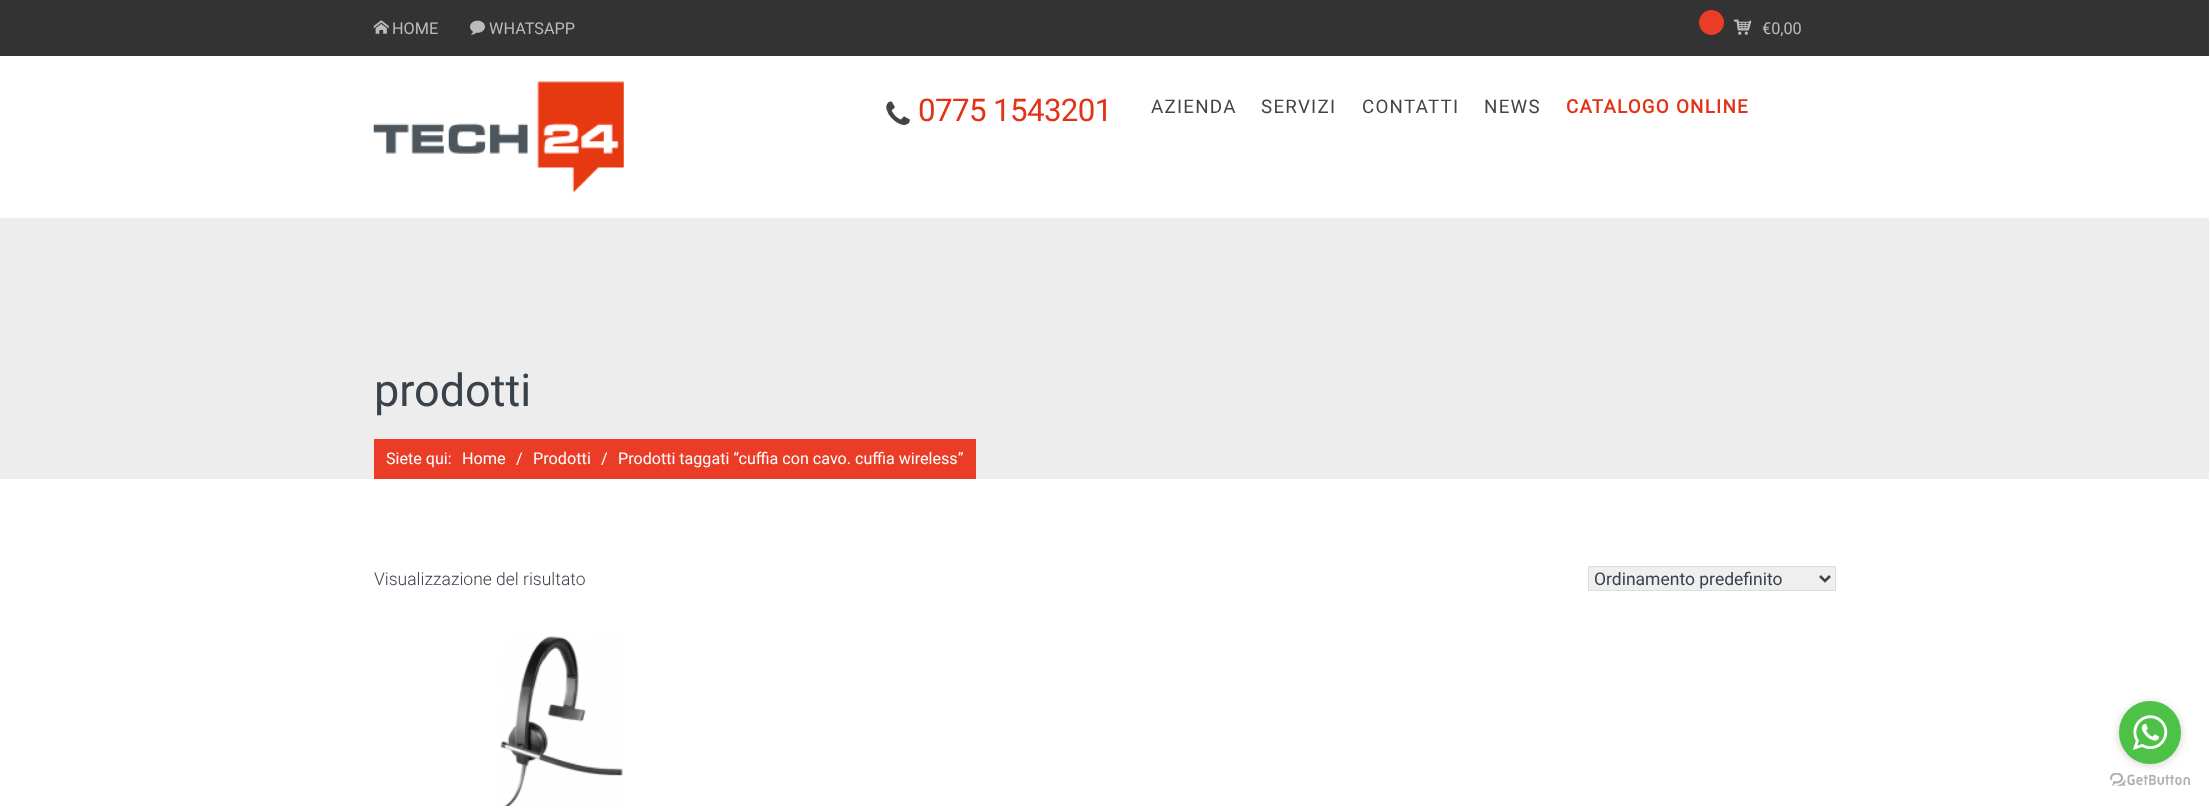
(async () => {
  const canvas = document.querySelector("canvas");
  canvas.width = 2209;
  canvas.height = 806;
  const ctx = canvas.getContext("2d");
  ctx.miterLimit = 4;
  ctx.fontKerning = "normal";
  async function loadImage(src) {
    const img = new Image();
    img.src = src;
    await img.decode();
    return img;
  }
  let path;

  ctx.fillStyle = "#ffffff";
  ctx.fillRect(0, 0, 2209, 806);
  ctx.fillStyle = "#333333";
  ctx.fillRect(0, 0, 2209, 56);
  ctx.drawImage(await loadImage("img/1.png"), 373, 20, 16, 14);
  ctx.drawImage(await loadImage("img/2.png"), 470, 20, 15, 15);
  ctx.drawImage(await loadImage("img/3.png"), 1733, 19, 19, 16);
  ctx.fillStyle = "#eb3c27";
  ctx.beginPath();
  ctx.arc(1711.5, 22.5, 12.5, 0, Math.PI * 2);
  ctx.fill();
  ctx.drawImage(await loadImage("img/4.png"), 373, 81, 251, 112);
  ctx.drawImage(await loadImage("img/5.png"), 886, 101, 24, 24);
  ctx.fillStyle = "#ededed";
  ctx.fillRect(0, 218, 2209, 261);
  ctx.fillStyle = "#eb3c27";
  ctx.fillRect(374, 439, 602, 40);
  ctx.fillStyle = "#efefef";
  ctx.beginPath();
  ctx.rect(1588.5, 566.5, 247, 24);
  ctx.fill();
  ctx.strokeStyle = "#dddddd";
  ctx.stroke();
  path = new Path2D("M1820 576L1825 581L1830 576");
  ctx.strokeStyle = "#39414b";
  ctx.lineWidth = 2.5;
  ctx.stroke(path);
  ctx.drawImage(await loadImage("img/6.png"), 500, 636, 123, 170);
  ctx.drawImage(await loadImage("img/8.png"), 2110, 773, 80, 13);
  ctx.fillStyle = "rgba(136, 136, 136, 0.4)";
  ctx.filter = "blur(4.5px)";
  ctx.beginPath();
  ctx.roundRect(2119, 703, 62, 62, 31);
  ctx.fill();
  ctx.filter = "none";
  ctx.fillStyle = "#4dc247";
  ctx.beginPath();
  ctx.roundRect(2119, 701, 62, 63, 31);
  ctx.fill();
  ctx.drawImage(await loadImage("img/7.png"), 2132, 715, 36, 35);
  ctx.font = "16.25px Roboto";
  ctx.fillStyle = "#bbbbbb";
  for (const [text, x, y] of [
    ["HOME", 392, 34],
    ["WHATSAPP", 489, 34],
    ["€0,00", 1762, 34],
  ]) {
    ctx.fillText(text, x, y);
  }
  ctx.letterSpacing = "-0.6px";
  ctx.font = "31.25px Roboto";
  ctx.fillStyle = "#e33317";
  ctx.fillText("0775 1543201", 918, 121);
  ctx.letterSpacing = "1.25px";
  ctx.font = "18.75px Roboto";
  ctx.fillStyle = "#444444";
  for (const [text, x, y] of [
    ["AZIENDA", 1151, 113],
    ["SERVIZI", 1261, 113],
    ["CONTATTI", 1362, 113],
    ["NEWS", 1484, 113],
  ]) {
    ctx.fillText(text, x, y);
  }
  ctx.font = "bold 18.75px Roboto";
  ctx.fillStyle = "#e33317";
  ctx.fillText("CATALOGO ONLINE", 1566, 113);
  ctx.letterSpacing = "0px";
  ctx.font = "45px Roboto";
  ctx.fillStyle = "#39414b";
  ctx.fillText("prodotti", 374, 406);
  ctx.font = "16.1px Roboto";
  ctx.fillStyle = "#ffffff";
  ctx.fillText("Siete qui:", 386, 464);
  ctx.font = "16.25px Roboto";
  ctx.fillText("Home", 462, 464);
  ctx.font = "16.1px Roboto";
  ctx.fillText("/", 516, 464);
  ctx.font = "16.25px Roboto";
  ctx.fillText("Prodotti", 533, 464);
  ctx.font = "16.1px Roboto";
  ctx.fillText("/", 601, 464);
  ctx.fillText("Prodotti taggati “cuffia con cavo. cuffia wireless”", 618, 464);
  ctx.font = "300 17.5px Roboto";
  ctx.fillStyle = "#39414b";
  ctx.fillText("Visualizzazione del risultato", 374, 585);
  ctx.font = "17.5px Roboto";
  ctx.fillText("Ordinamento predefinito", 1594, 585);
})();
